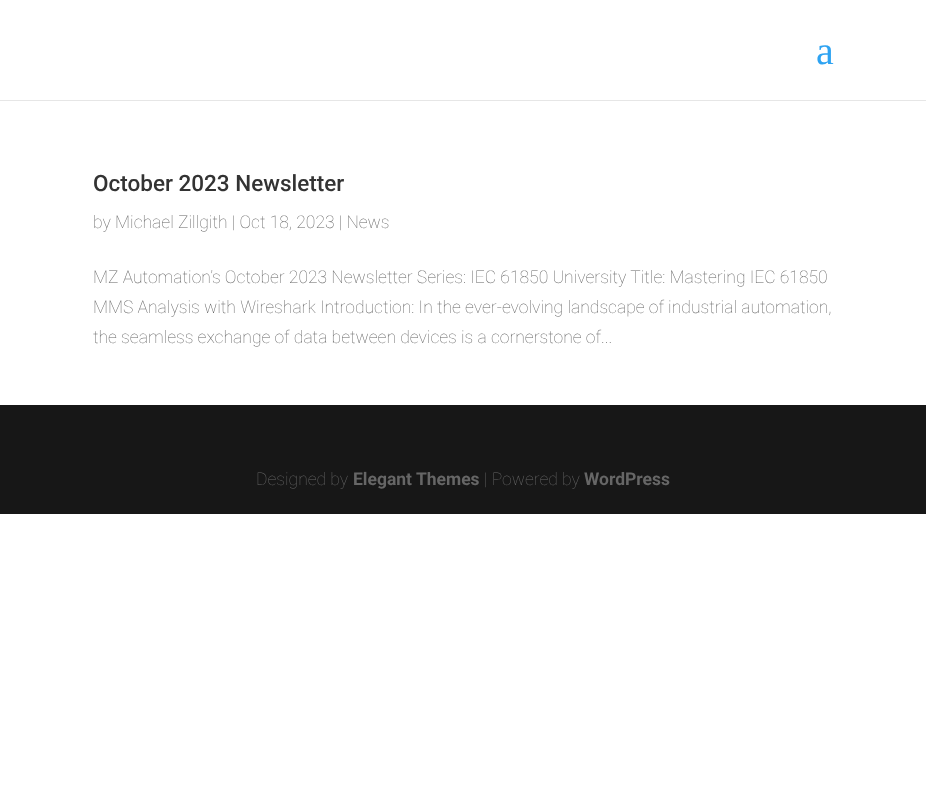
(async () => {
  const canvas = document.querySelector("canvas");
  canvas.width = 926;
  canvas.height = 806;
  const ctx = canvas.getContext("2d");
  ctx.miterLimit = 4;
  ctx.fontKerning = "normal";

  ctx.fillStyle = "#ffffff";
  ctx.fillRect(0, 0, 926, 806);
  ctx.fillStyle = "#e6e6e6";
  ctx.fillRect(0, 100, 926, 1);
  ctx.fillStyle = "#171717";
  ctx.fillRect(0, 405, 926, 109);
  ctx.font = "40px Liberation Serif";
  ctx.fillStyle = "#2ea3f2";
  ctx.fillText("a", 816, 64);
  ctx.font = "500 22.5px Roboto";
  ctx.fillStyle = "#333333";
  ctx.fillText("October 2023 Newsletter", 93, 191);
  ctx.font = "100 17.5px Roboto";
  ctx.fillStyle = "#666666";
  for (const [text, x, y] of [
    ["by Michael Zillgith | Oct 18, 2023 | News", 93, 228],
    ["MZ Automation’s October 2023 Newsletter Series: IEC 61850 University Title: Mastering IEC 61850", 93, 283],
    ["MMS Analysis with Wireshark Introduction: In the ever-evolving landscape of industrial automation,", 93, 313],
    ["the seamless exchange of data between devices is a cornerstone of...", 93, 343],
    ["Designed by", 256, 485],
  ]) {
    ctx.fillText(text, x, y);
  }
  ctx.font = "bold 17.5px Roboto";
  ctx.fillText("Elegant Themes", 353, 485);
  ctx.font = "100 17.5px Roboto";
  ctx.fillText("| Powered by", 484, 485);
  ctx.font = "bold 17.5px Roboto";
  ctx.fillText("WordPress", 584, 485);
})();
